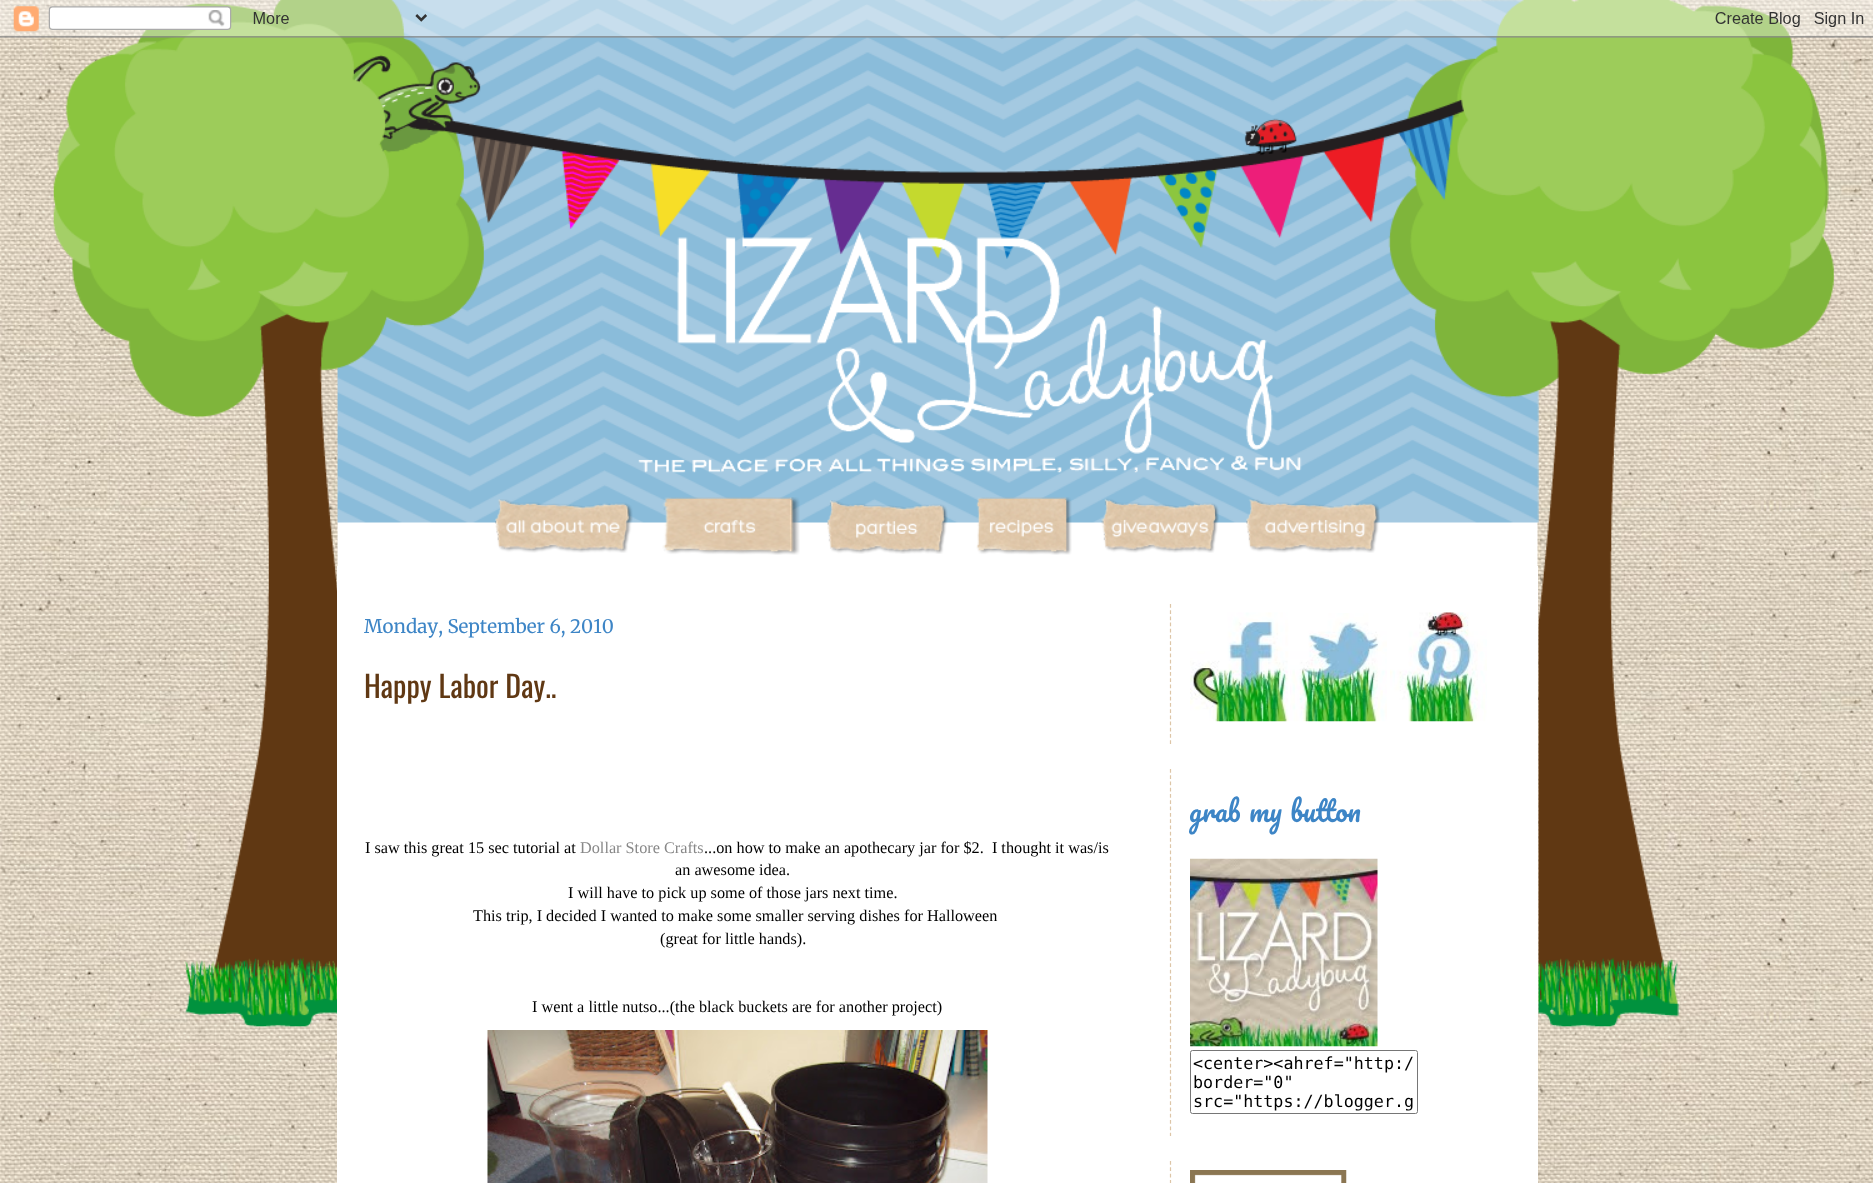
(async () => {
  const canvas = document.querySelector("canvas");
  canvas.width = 1873;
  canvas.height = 1183;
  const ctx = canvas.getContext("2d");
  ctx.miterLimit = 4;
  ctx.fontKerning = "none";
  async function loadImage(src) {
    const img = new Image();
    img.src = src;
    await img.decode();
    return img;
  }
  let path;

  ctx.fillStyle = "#ffffff";
  ctx.fillRect(0, 0, 1873, 1183);
  ctx.drawImage(await loadImage("img/1.png"), 0, 0, 1873, 1183);
  ctx.drawImage(await loadImage("img/3.png"), 53, 0, 1781, 1027);
  ctx.drawImage(await loadImage("img/2.png"), 0, 0, 1873, 38);
  ctx.drawImage(await loadImage("img/4.png"), 638, 232, 664, 241);
  ctx.drawImage(await loadImage("img/5.png"), 495, 499, 138, 54);
  ctx.drawImage(await loadImage("img/6.png"), 662, 497, 138, 58);
  ctx.drawImage(await loadImage("img/7.png"), 827, 500, 121, 54);
  ctx.drawImage(await loadImage("img/8.png"), 976, 497, 96, 58);
  ctx.drawImage(await loadImage("img/9.png"), 1101, 498, 118, 55);
  ctx.drawImage(await loadImage("img/10.png"), 1246, 499, 134, 54);
  ctx.fillRect(337, 566, 1201, 617);
  ctx.drawImage(await loadImage("img/11.png"), 487, 1030, 501, 153);
  path = new Path2D("M1170.5 604V744");
  ctx.strokeStyle = "#ddc5a7";
  ctx.lineWidth = 1.2;
  ctx.setLineDash([3.75, 2.44]);
  ctx.stroke(path);
  ctx.drawImage(await loadImage("img/12.png"), 1190, 612, 99, 110);
  ctx.drawImage(await loadImage("img/13.png"), 1290, 613, 97, 109);
  ctx.drawImage(await loadImage("img/14.png"), 1390, 612, 97, 110);
  path = new Path2D("M1170.5 769V1136");
  ctx.setLineDash([3.75, 2.52]);
  ctx.stroke(path);
  ctx.drawImage(await loadImage("img/15.png"), 1190, 858, 188, 189);
  ctx.beginPath();
  ctx.roundRect(1190.5, 1050.5, 227, 63, 2);
  ctx.strokeStyle = "#767676";
  ctx.lineWidth = 1;
  ctx.setLineDash([]);
  ctx.stroke();
  path = new Path2D("M1170.5 1161V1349");
  ctx.strokeStyle = "#ddc5a7";
  ctx.lineWidth = 1.2;
  ctx.setLineDash([3.75, 2.59]);
  ctx.stroke(path);
  ctx.drawImage(await loadImage("img/16.png"), 1190, 1170, 157, 13);
  ctx.font = "300 18.75px Merriweather";
  ctx.fillStyle = "#3d85c6";
  ctx.fillText("Monday, September 6, 2010", 364, 633);
  ctx.font = "30px Oswald";
  ctx.fillStyle = "#603813";
  ctx.fillText("Happy Labor Day..", 364, 698);
  ctx.font = "16.25px Liberation Serif";
  ctx.fillStyle = "#000000";
  ctx.fillText("I saw this great 15 sec tutorial at", 365, 853);
  ctx.fillStyle = "#888888";
  ctx.fillText("Dollar Store Crafts", 580, 853);
  ctx.fillStyle = "#000000";
  for (const [text, x, y] of [
    ["...on how to make an apothecary jar for $2.  I thought it was/is", 704, 853],
    ["an awesome idea.", 675, 875],
    ["I will have to pick up some of those jars next time.", 568, 898],
    ["This trip, I decided I wanted to make some smaller serving dishes for Halloween", 473, 921],
    ["(great for little hands).", 660, 944],
    ["I went a little nutso...(the black buckets are for another project)", 532, 1012],
  ]) {
    ctx.fillText(text, x, y);
  }
  ctx.wordSpacing = "1px";
  ctx.font = "27.5px Pacifico";
  ctx.fillStyle = "#3d85c6";
  ctx.fillText("grab my button", 1189, 822);
  ctx.wordSpacing = "0px";
  ctx.font = "16.7px DejaVu Sans Mono";
  ctx.fillStyle = "#000000";
  for (const [text, x, y] of [
    ["<center><ahref=\"http:/", 1193, 1069],
    ["border=\"0\"", 1193, 1088],
    ["src=\"https://blogger.g", 1193, 1107],
  ]) {
    ctx.fillText(text, x, y);
  }
})();
